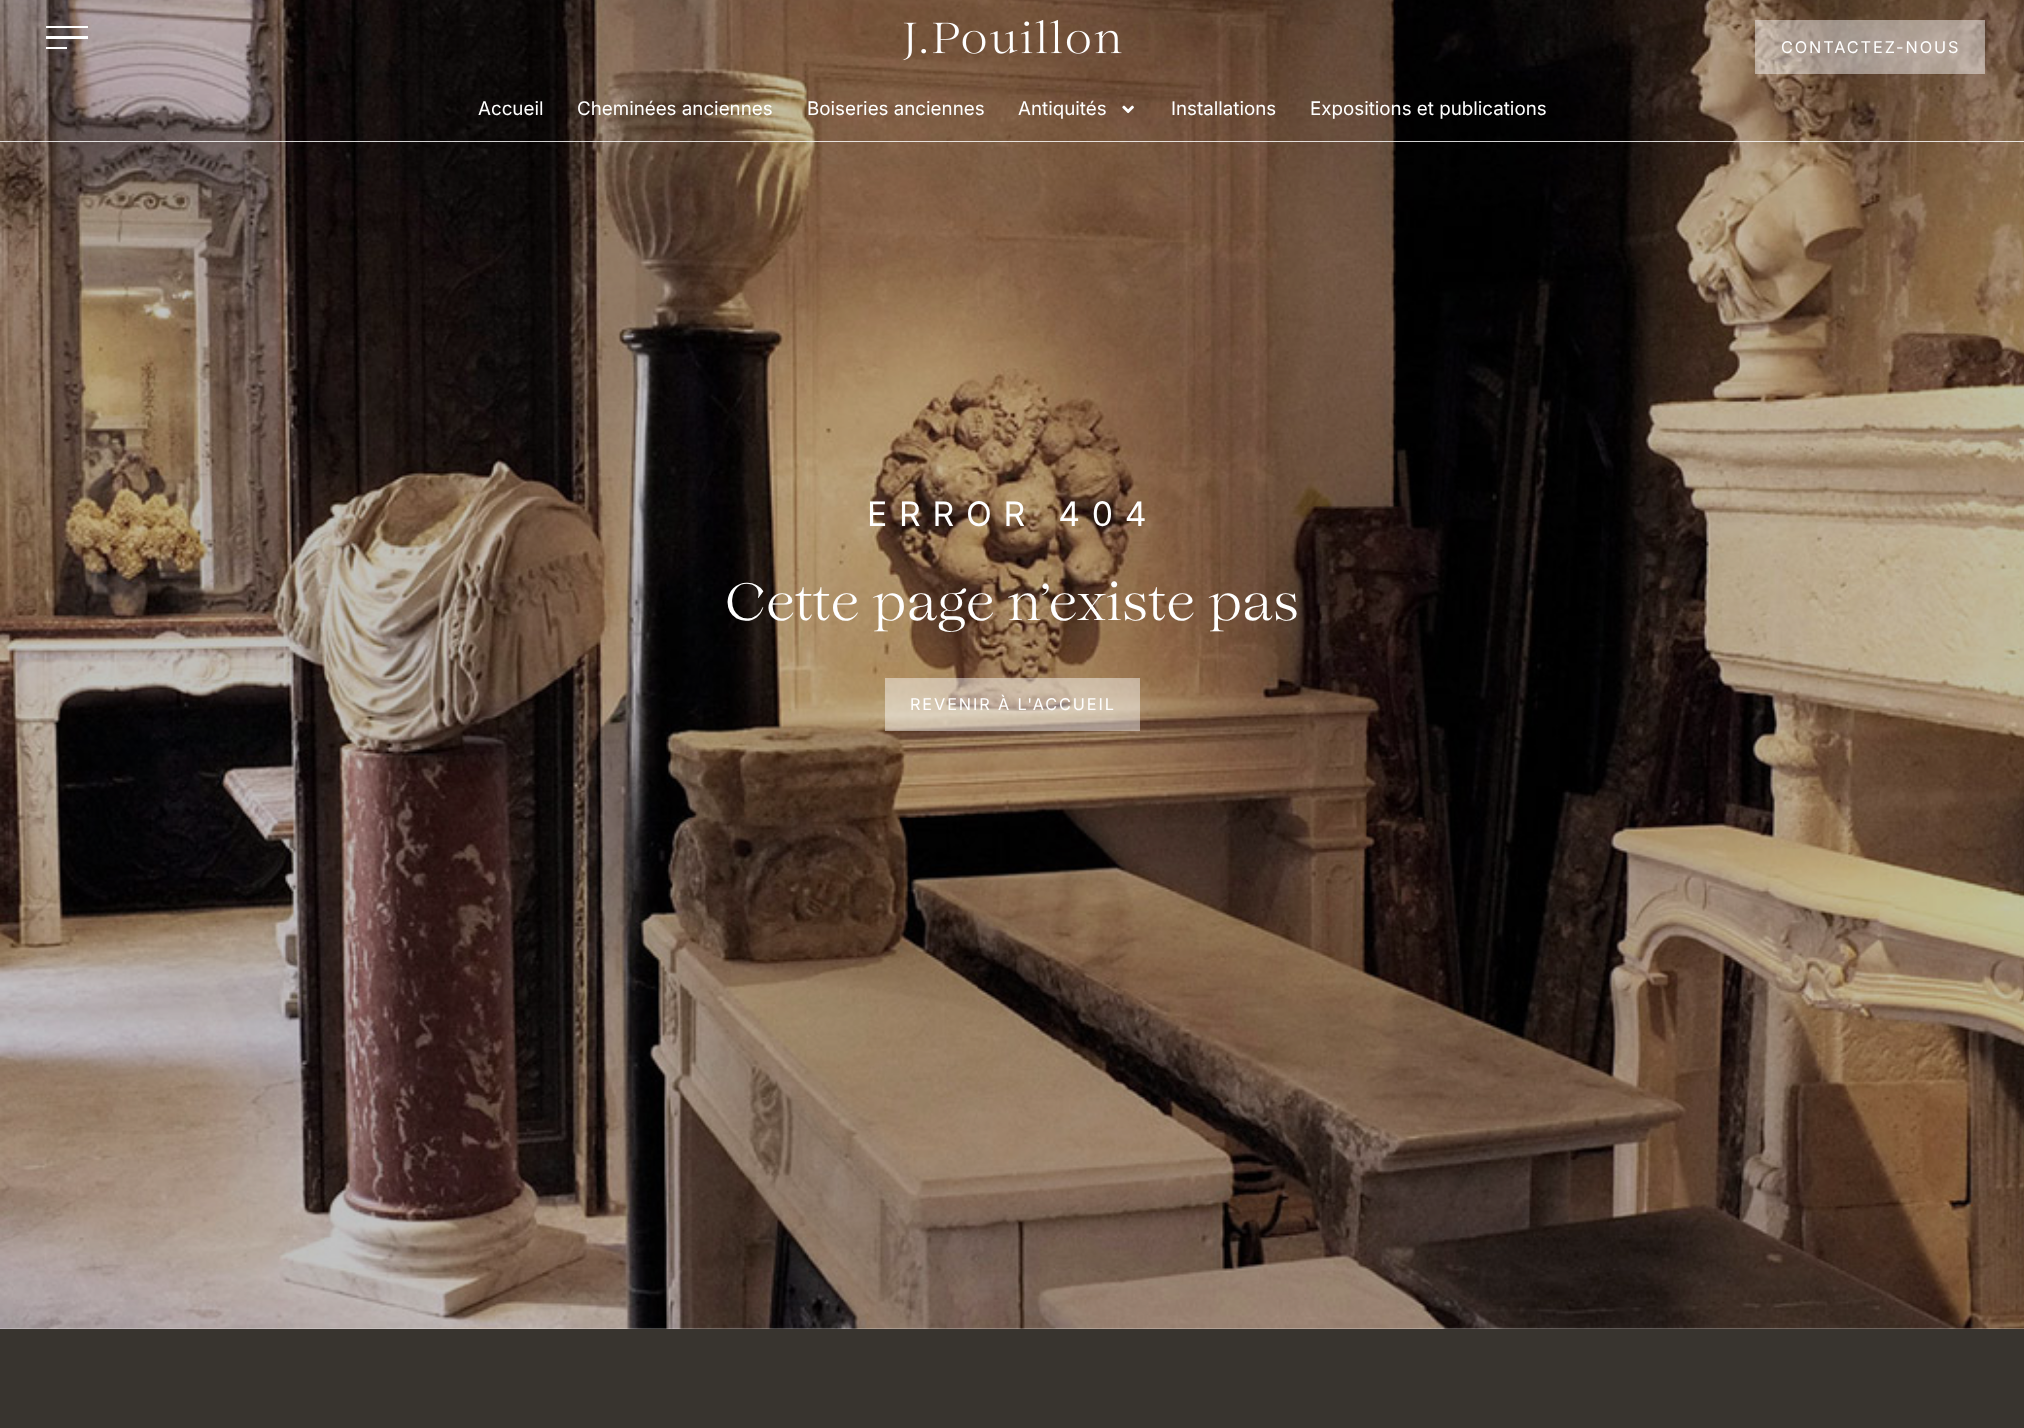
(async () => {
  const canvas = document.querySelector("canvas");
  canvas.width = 2024;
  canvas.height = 1428;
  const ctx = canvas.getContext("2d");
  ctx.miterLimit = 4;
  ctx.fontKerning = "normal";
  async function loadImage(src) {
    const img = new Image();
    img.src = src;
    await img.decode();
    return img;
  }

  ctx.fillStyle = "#ffffff";
  ctx.fillRect(0, 0, 2024, 1428);
  ctx.drawImage(await loadImage("img/3.png"), 0, 0, 2024, 1329);
  for (const [x, y, w, h, color] of [
    [0, 141, 2024, 1, "rgba(255, 255, 255, 0.82)"],
    [46, 26, 42, 2, "#ffffff"],
    [46, 36, 42, 3, "#ffffff"],
    [46, 47, 21, 2, "#ffffff"],
    [1755, 20, 230, 54, "rgba(255, 255, 255, 0.46)"],
  ]) {
    ctx.fillStyle = color;
    ctx.fillRect(x, y, w, h);
  }
  ctx.drawImage(await loadImage("img/1.png"), 903, 20, 219, 40);
  ctx.drawImage(await loadImage("img/2.png"), 1122, 105, 12, 9);
  ctx.fillRect(885, 678, 255, 53);
  ctx.fillStyle = "#38342f";
  ctx.fillRect(0, 1329, 2024, 99);
  ctx.letterSpacing = "1.9px";
  ctx.font = "16.25px Inter";
  ctx.fillStyle = "#ffffff";
  ctx.fillText("CONTACTEZ-NOUS", 1781, 53);
  ctx.letterSpacing = "0px";
  ctx.font = "18.75px Inter";
  for (const [text, x, y] of [
    ["Accueil", 478, 115],
    ["Cheminées anciennes", 577, 115],
    ["Boiseries anciennes", 807, 115],
    ["Antiquités", 1018, 115],
    ["Installations", 1171, 115],
    ["Expositions et publications", 1310, 115],
  ]) {
    ctx.fillText(text, x, y);
  }
  ctx.letterSpacing = "11.75px";
  ctx.font = "33.75px Inter";
  ctx.fillText("ERROR 404", 867, 526);
  ctx.letterSpacing = "0px";
  ctx.font = "500 52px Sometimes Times";
  ctx.fillText("Cette page n'existe pas", 725, 620);
  ctx.letterSpacing = "1.9px";
  ctx.font = "16.25px Inter";
  ctx.fillText("REVENIR À L'ACCUEIL", 910, 710);
})();
